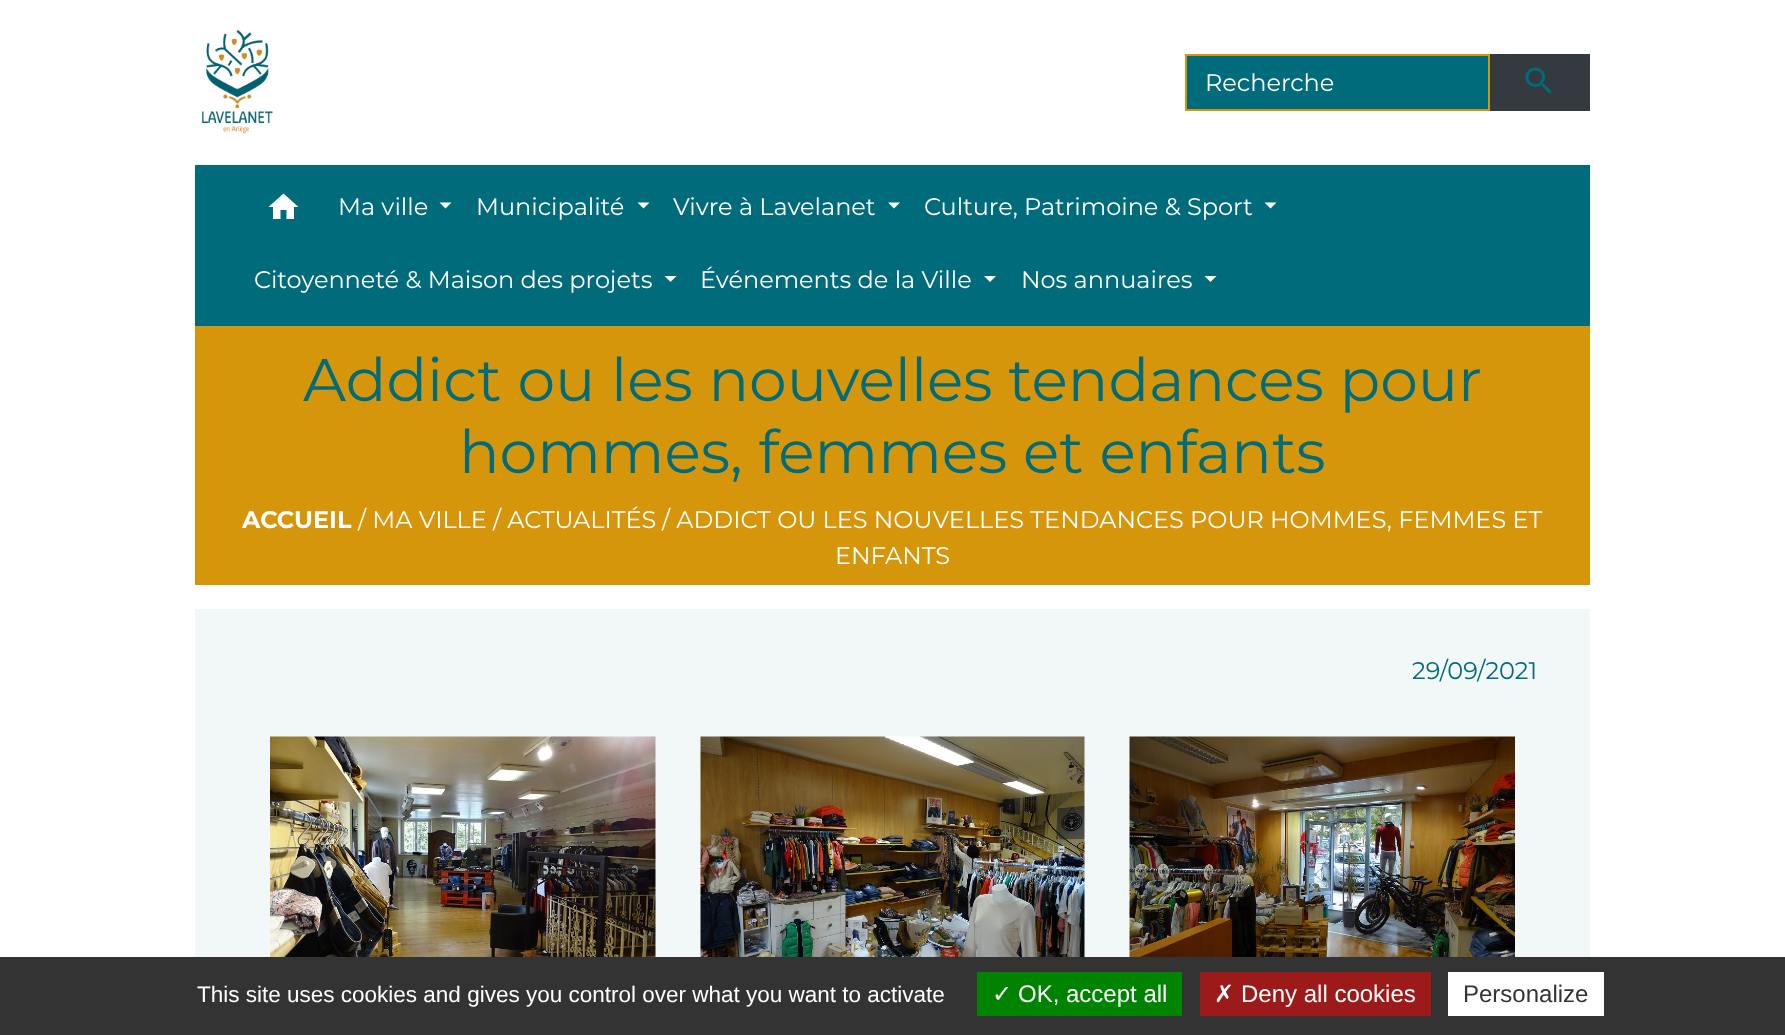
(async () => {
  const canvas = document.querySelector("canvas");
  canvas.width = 1785;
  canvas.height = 1035;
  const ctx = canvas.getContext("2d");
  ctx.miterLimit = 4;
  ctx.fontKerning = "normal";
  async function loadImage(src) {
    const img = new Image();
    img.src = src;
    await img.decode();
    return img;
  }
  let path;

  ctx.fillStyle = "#ffffff";
  ctx.fillRect(0, 0, 1785, 1035);
  ctx.drawImage(await loadImage("img/1.png"), 201, 30, 72, 104);
  ctx.fillStyle = "#006b7b";
  ctx.beginPath();
  ctx.rect(1186, 55, 303, 55);
  ctx.fill();
  ctx.strokeStyle = "#d5960b";
  ctx.lineWidth = 2;
  ctx.stroke();
  ctx.fillStyle = "#343a40";
  ctx.fillRect(1490, 54, 100, 57);
  ctx.drawImage(await loadImage("img/2.png"), 1525, 67, 27, 27);
  ctx.fillStyle = "#006b7b";
  ctx.fillRect(195, 165, 1395, 161);
  ctx.fillStyle = "#ffffff";
  path = new Path2D("M280.5 219H273V207H268.5L283.5 193.5L298.5 207H294V219H286.5V210H280.5Z");
  ctx.fill(path);
  path = new Path2D("M439.5 202.5H451.5L445.5 208.5Z");
  ctx.fill(path);
  path = new Path2D("M637.5 202.5H649.5L643.5 208.5Z");
  ctx.fill(path);
  path = new Path2D("M888 202.5H900L894 208.5Z");
  ctx.fill(path);
  path = new Path2D("M1264.5 202.5H1276.5L1270.5 208.5Z");
  ctx.fill(path);
  path = new Path2D("M664.5 276H676.5L670.5 282Z");
  ctx.fill(path);
  path = new Path2D("M984 276H996L990 282Z");
  ctx.fill(path);
  path = new Path2D("M1204.5 276H1216.5L1210.5 282Z");
  ctx.fill(path);
  ctx.fillStyle = "#d5960b";
  ctx.fillRect(195, 326, 1395, 259);
  ctx.fillStyle = "#f2f8f8";
  ctx.fillRect(195, 609, 1395, 348);
  ctx.drawImage(await loadImage("img/3.png"), 270, 736, 386, 221);
  ctx.drawImage(await loadImage("img/4.png"), 700, 736, 385, 221);
  ctx.drawImage(await loadImage("img/5.png"), 1129, 736, 386, 221);
  for (const [x, y, w, h, color] of [
    [0, 957, 1785, 78, "#333333"],
    [977, 972, 205, 44, "#008300"],
    [1200, 972, 231, 44, "#9c1a1a"],
    [1448, 972, 156, 44, "#ffffff"],
  ]) {
    ctx.fillStyle = color;
    ctx.fillRect(x, y, w, h);
  }
  ctx.font = "24px Montserrat";
  for (const [text, x, y] of [
    ["Recherche", 1205, 91],
    ["Ma ville", 338, 215],
    ["Municipalité", 476, 215],
    ["Vivre à Lavelanet", 673, 215],
    ["Culture, Patrimoine & Sport", 924, 215],
    ["Citoyenneté & Maison des projets", 254, 288],
    ["Événements de la Ville", 700, 288],
    ["Nos annuaires", 1021, 288],
  ]) {
    ctx.fillText(text, x, y);
  }
  ctx.font = "60px Montserrat";
  ctx.fillStyle = "#006b7b";
  ctx.fillText("Addict ou les nouvelles tendances pour", 303, 401);
  ctx.fillText("hommes, femmes et enfants", 459, 473);
  ctx.font = "bold 24px Montserrat";
  ctx.fillStyle = "#ffffff";
  ctx.fillText("ACCUEIL", 242, 528);
  ctx.font = "24px Montserrat";
  for (const [text, x, y] of [
    ["/ MA VILLE", 358, 528],
    ["/ ACTUALITÉS", 493, 528],
    ["/ ADDICT OU LES NOUVELLES TENDANCES POUR HOMMES, FEMMES ET", 662, 528],
    ["ENFANTS", 835, 564],
  ]) {
    ctx.fillText(text, x, y);
  }
  ctx.fillStyle = "#006b7b";
  ctx.fillText("29/09/2021", 1412, 679);
  ctx.font = "22.5px Liberation Sans";
  ctx.fillStyle = "#ffffff";
  ctx.fillText("This site uses cookies and gives you control over what you want to activate", 197, 1002);
  ctx.font = "24px DejaVu Sans";
  ctx.fillText("✓", 992, 1002);
  ctx.font = "24px Liberation Sans";
  ctx.fillText("OK, accept all", 1018, 1002);
  ctx.font = "24px DejaVu Sans";
  ctx.fillText("✗", 1214, 1002);
  ctx.font = "24px Liberation Sans";
  ctx.fillText("Deny all cookies", 1241, 1002);
  ctx.fillStyle = "#333333";
  ctx.fillText("Personalize", 1463, 1002);
})();
